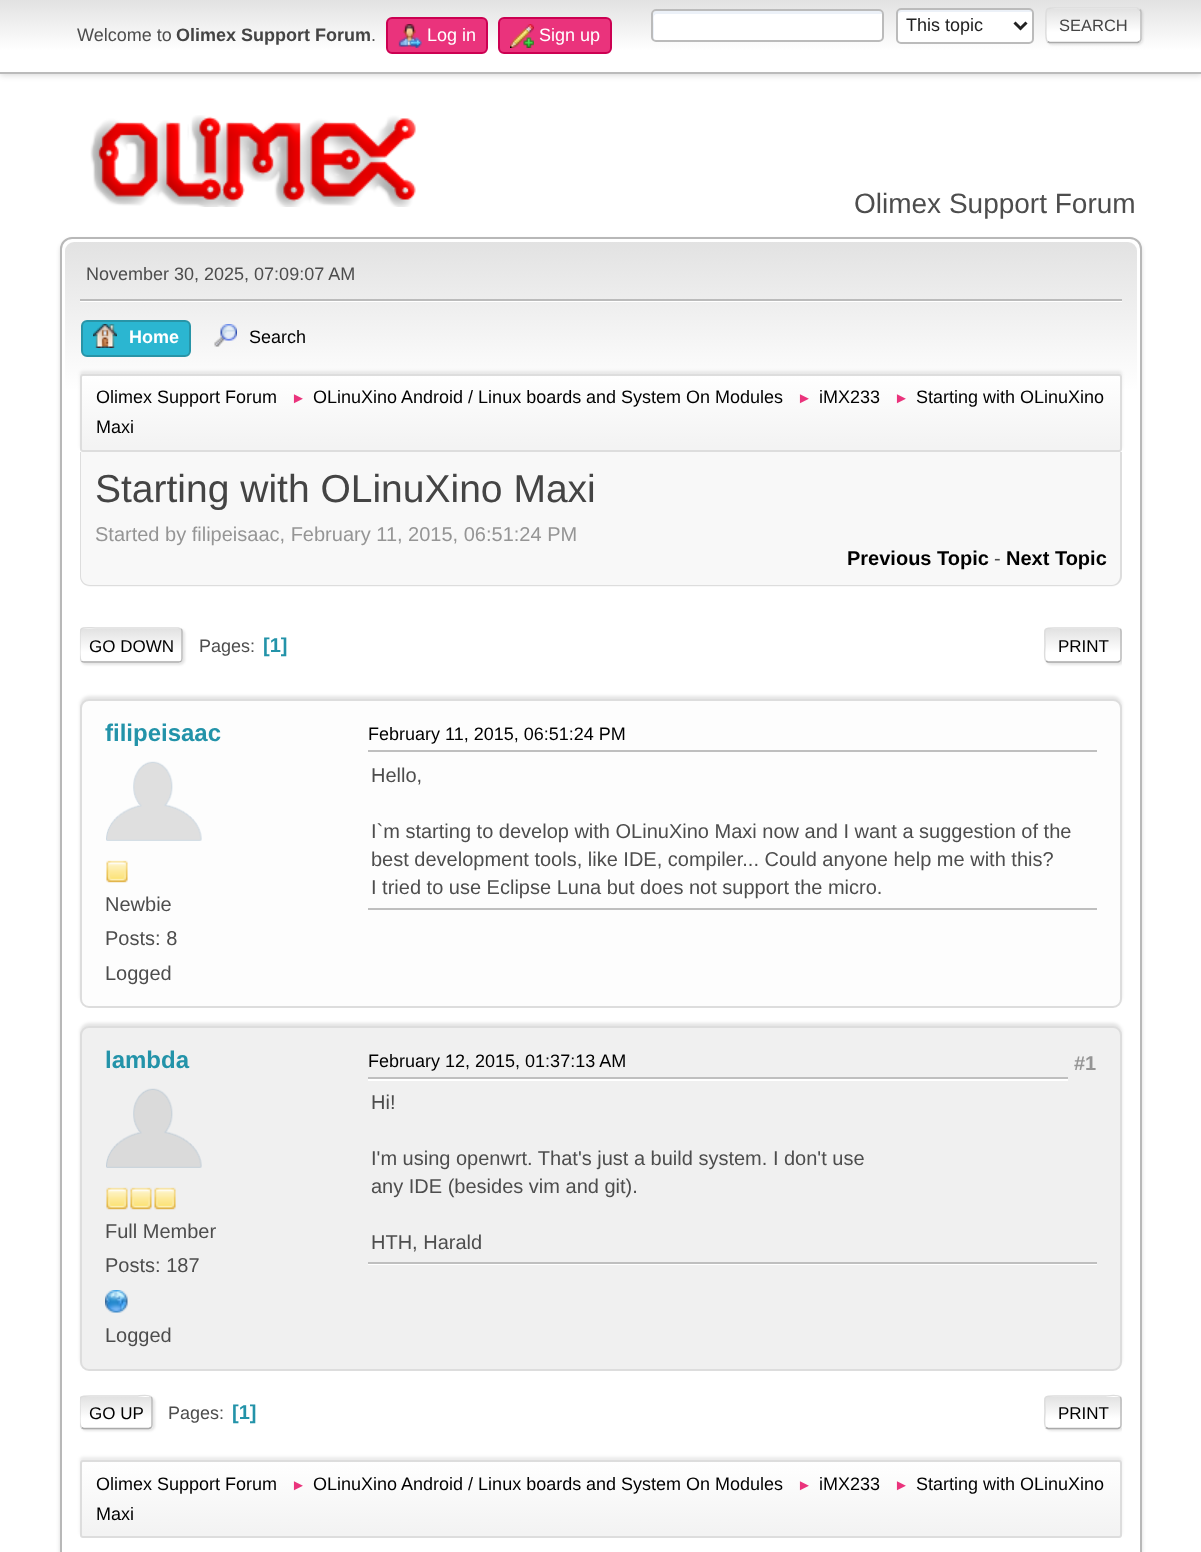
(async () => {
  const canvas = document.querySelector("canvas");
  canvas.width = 1201;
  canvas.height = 1552;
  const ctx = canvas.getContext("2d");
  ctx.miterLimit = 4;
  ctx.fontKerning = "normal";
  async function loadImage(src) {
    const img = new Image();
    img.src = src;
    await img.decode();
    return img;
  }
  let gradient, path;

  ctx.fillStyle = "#ffffff";
  ctx.fillRect(0, 0, 1201, 1552);
  ctx.fillStyle = "rgba(0, 0, 0, 0.16)";
  ctx.filter = "blur(3px)";
  ctx.beginPath();
  ctx.rect(0, 2, 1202, 73);
  ctx.fill();
  ctx.filter = "none";
  gradient = ctx.createLinearGradient(601, 0, 601, 72);
  gradient.addColorStop(0, "#e2e2e2");
  gradient.addColorStop(0.7, "#ffffff");
  ctx.fillStyle = gradient;
  ctx.fillRect(0, 0, 1201, 72);
  ctx.fillStyle = "#bbbbbb";
  ctx.fillRect(0, 72, 1201, 2);
  ctx.fillStyle = "#ea337c";
  ctx.beginPath();
  ctx.roundRect(387, 18, 100, 35, 5);
  ctx.fill();
  ctx.strokeStyle = "#cc0052";
  ctx.lineWidth = 2;
  ctx.stroke();
  ctx.drawImage(await loadImage("img/1.png"), 398, 24, 24, 24);
  ctx.beginPath();
  ctx.roundRect(499, 18, 112, 35, 5);
  ctx.fill();
  ctx.stroke();
  ctx.drawImage(await loadImage("img/2.png"), 510, 24, 24, 24);
  ctx.fillStyle = "#ffffff";
  ctx.beginPath();
  ctx.roundRect(651, 9, 233, 33, 5);
  ctx.fill();
  ctx.fillStyle = "#ecf1f8";
  path = new Path2D("M657 14H882C882 12 881 11 879 11H656C654 11 653 12 653 14V38C653 39 653 40 654 40V24C654 21 652 14 657 14Z");
  ctx.fill(path);
  ctx.beginPath();
  ctx.roundRect(652, 10, 231, 31, 4);
  ctx.strokeStyle = "#bbbbbb";
  ctx.stroke();
  ctx.fillStyle = "#ffffff";
  ctx.beginPath();
  ctx.roundRect(896, 8, 138, 36, 5);
  ctx.fill();
  ctx.fillStyle = "#ecf1f8";
  path = new Path2D("M902 12H1032C1032 11 1031 10 1030 9H922C894 9 897 4 897 26C897 28 896 39 898 41V15C898 13 900 12 902 12Z");
  ctx.fill(path);
  ctx.beginPath();
  ctx.roundRect(897, 9, 136, 34, 4);
  ctx.stroke();
  path = new Path2D("M1014.5 22.5L1020.5 28.5L1026.5 22.5");
  ctx.strokeStyle = "#222222";
  ctx.lineWidth = 3;
  ctx.stroke(path);
  ctx.fillStyle = "rgba(0, 0, 0, 0.1)";
  ctx.filter = "blur(1px)";
  ctx.beginPath();
  ctx.roundRect(1047, 9, 96, 36, 5);
  ctx.fill();
  ctx.filter = "none";
  ctx.save();
  ctx.beginPath();
  ctx.roundRect(1046, 8, 96, 36, 5);
  ctx.clip();
  gradient = ctx.createLinearGradient(1094, -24, 1094, 9);
  gradient.addColorStop(0, "#e2e2e2");
  gradient.addColorStop(0.7, "#ffffff");
  ctx.fillStyle = gradient;
  ctx.fillRect(1046, 8, 96, 1);
  gradient = ctx.createLinearGradient(1094, 9, 1094, 42);
  gradient.addColorStop(0, "#e2e2e2");
  gradient.addColorStop(0.7, "#ffffff");
  ctx.fillStyle = gradient;
  ctx.fillRect(1046, 9, 96, 33);
  gradient = ctx.createLinearGradient(1094, 42, 1094, 75);
  gradient.addColorStop(0, "#e2e2e2");
  gradient.addColorStop(0.7, "#ffffff");
  ctx.fillStyle = gradient;
  ctx.fillRect(1046, 42, 96, 2);
  ctx.restore();
  path = new Path2D("M1139.5 9.5C1140.5 10 1141 11 1141 12V39C1141 40 1140.5 41 1139.5 41.5");
  ctx.strokeStyle = "#bbbbbb";
  ctx.lineWidth = 1.5;
  ctx.stroke(path);
  path = new Path2D("M1139.5 41.5L1137.5 42.5H1049.5L1047.5 41.5");
  ctx.strokeStyle = "#aaaaaa";
  ctx.stroke(path);
  path = new Path2D("M1047.5 41.5C1045 39.5 1046 28.5 1046 25.5C1046 5 1043 8 1064.5 8H1137L1139.5 9.5");
  ctx.strokeStyle = "#dddddd";
  ctx.stroke(path);
  ctx.drawImage(await loadImage("img/3.png"), 90, 115, 326, 92);
  ctx.fillStyle = "rgba(0, 0, 0, 0.14)";
  ctx.filter = "blur(2px)";
  ctx.beginPath();
  ctx.roundRect(60, 240, 1082, 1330, 12);
  ctx.fill();
  ctx.filter = "none";
  ctx.fillStyle = "#ffffff";
  ctx.beginPath();
  ctx.roundRect(61, 238, 1080, 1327, 11);
  ctx.fill();
  ctx.strokeStyle = "#b8b8b8";
  ctx.lineWidth = 2;
  ctx.stroke();
  gradient = ctx.createLinearGradient(601, 241, 601, 455);
  gradient.addColorStop(0, "#e2e2e2");
  gradient.addColorStop(0.7, "#ffffff");
  ctx.fillStyle = gradient;
  ctx.beginPath();
  ctx.roundRect(65, 242, 1072, 213, [9, 9, 0, 0]);
  ctx.fill();
  ctx.fillStyle = "#ffffff";
  ctx.fillRect(80, 301, 1042, 1);
  ctx.fillStyle = "#bbbbbb";
  ctx.fillRect(80, 299, 1042, 2);
  ctx.fillStyle = "#2bb6d1";
  ctx.beginPath();
  ctx.roundRect(82, 321, 108, 35, 5);
  ctx.fill();
  ctx.strokeStyle = "#2894a7";
  ctx.stroke();
  ctx.drawImage(await loadImage("img/4.png"), 93, 324, 24, 24);
  ctx.drawImage(await loadImage("img/5.png"), 214, 324, 23, 23);
  ctx.fillStyle = "rgba(0, 0, 0, 0.08)";
  ctx.filter = "blur(1.5px)";
  ctx.beginPath();
  ctx.roundRect(80, 371, 1042, 78, 3);
  ctx.fill();
  ctx.filter = "none";
  ctx.save();
  ctx.beginPath();
  ctx.roundRect(80, 374, 1042, 78, 3);
  ctx.clip();
  gradient = ctx.createLinearGradient(601, 375, 601, 450);
  gradient.addColorStop(0, "#ffffff");
  gradient.addColorStop(0.95, "#f3f3f3");
  ctx.fillStyle = gradient;
  ctx.fillRect(80, 375, 1042, 75);
  ctx.restore();
  ctx.beginPath();
  ctx.roundRect(81, 375, 1040, 76, 2);
  ctx.strokeStyle = "#dddddd";
  ctx.stroke();
  ctx.fillStyle = "#f8f8f8";
  ctx.beginPath();
  ctx.roundRect(80, 452, 1042, 135, [0, 0, 11, 11]);
  ctx.fill();
  ctx.fillStyle = "#dddddd";
  path = new Path2D("M80 452H1122V576C1122 582 1117 586 1112 586H90C84 586 80 582 80 576ZM81 452H1120V576C1120 581 1116 585 1112 585H90C85 585 81 581 81 576Z");
  ctx.fill(path, "evenodd");
  ctx.fillStyle = "rgba(0, 0, 0, 0.1)";
  ctx.filter = "blur(1px)";
  ctx.beginPath();
  ctx.roundRect(81, 629, 104, 36, 5);
  ctx.fill();
  ctx.filter = "none";
  ctx.fillStyle = "#ffffff";
  ctx.beginPath();
  ctx.roundRect(80, 627, 103, 36, 5);
  ctx.fill();
  ctx.save();
  ctx.beginPath();
  ctx.roundRect(80, 627, 103, 36, 5);
  ctx.clip();
  gradient = ctx.createLinearGradient(131, 629, 131, 662);
  gradient.addColorStop(0, "#e2e2e2");
  gradient.addColorStop(0.7, "#ffffff");
  ctx.fillStyle = gradient;
  ctx.fillRect(80, 629, 103, 33);
  ctx.restore();
  path = new Path2D("M181 629C182 629.5 182 630.5 182 631.5V658.5C182 659.5 182 660.5 181 661");
  ctx.strokeStyle = "#bbbbbb";
  ctx.lineWidth = 1.5;
  ctx.stroke(path);
  path = new Path2D("M181 661C180.5 662 179.5 662 178.5 662H84C83 662 82 662 81.5 661");
  ctx.strokeStyle = "#aaaaaa";
  ctx.stroke(path);
  ctx.save();
  ctx.beginPath();
  ctx.rect(80, 609, 1042, 72);
  ctx.clip();
  path = new Path2D("M81.5 661C79 659 80 648 80 645C80 624 77.5 628 100 628H178.5L181 629");
  ctx.strokeStyle = "#dddddd";
  ctx.stroke(path);
  ctx.restore();
  ctx.save();
  ctx.beginPath();
  ctx.rect(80, 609, 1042, 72);
  ctx.clip();
  ctx.fillStyle = "rgba(0, 0, 0, 0.1)";
  ctx.filter = "blur(1px)";
  ctx.beginPath();
  ctx.roundRect(1046, 629, 78, 36, 5);
  ctx.fill();
  ctx.filter = "none";
  ctx.restore();
  ctx.beginPath();
  ctx.roundRect(1044, 627, 78, 36, 5);
  ctx.fill();
  ctx.save();
  ctx.beginPath();
  ctx.roundRect(1044, 627, 78, 36, 5);
  ctx.clip();
  gradient = ctx.createLinearGradient(1083, 629, 1083, 662);
  gradient.addColorStop(0, "#e2e2e2");
  gradient.addColorStop(0.7, "#ffffff");
  ctx.fillStyle = gradient;
  ctx.fillRect(1044, 629, 78, 33);
  gradient = ctx.createLinearGradient(1083, 662, 1083, 695);
  gradient.addColorStop(0, "#e2e2e2");
  gradient.addColorStop(0.7, "#ffffff");
  ctx.fillStyle = gradient;
  ctx.fillRect(1044, 662, 78, 1);
  ctx.restore();
  path = new Path2D("M1120 629C1121 629.5 1121 630.5 1121 631.5V658.5C1121 659.5 1121 660.5 1120 661");
  ctx.strokeStyle = "#bbbbbb";
  ctx.stroke(path);
  path = new Path2D("M1120 661L1118 662H1048L1046 661");
  ctx.strokeStyle = "#aaaaaa";
  ctx.stroke(path);
  path = new Path2D("M1046 661C1043.5 659 1045 648 1045 645C1045 626 1041.5 628 1060 628H1117.5L1120 629");
  ctx.strokeStyle = "#dddddd";
  ctx.stroke(path);
  ctx.fillStyle = "rgba(0, 0, 0, 0.1)";
  ctx.filter = "blur(1.5px)";
  ctx.beginPath();
  ctx.roundRect(80, 696, 1042, 309, 9);
  ctx.fill();
  ctx.filter = "none";
  ctx.fillStyle = "#fdfdfd";
  ctx.beginPath();
  ctx.roundRect(81, 700, 1040, 307, 8);
  ctx.fill();
  ctx.lineWidth = 2;
  ctx.stroke();
  ctx.drawImage(await loadImage("img/6.png"), 106, 761, 96, 80);
  ctx.drawImage(await loadImage("img/7.png"), 106, 860, 22, 23);
  ctx.fillStyle = "#bfbfbf";
  ctx.fillRect(368, 750, 729, 2);
  ctx.fillRect(368, 908, 729, 2);
  ctx.fillStyle = "rgba(0, 0, 0, 0.1)";
  ctx.filter = "blur(1.5px)";
  ctx.beginPath();
  ctx.roundRect(80, 1023, 1042, 345, 9);
  ctx.fill();
  ctx.filter = "none";
  ctx.fillStyle = "#f0f0f0";
  ctx.beginPath();
  ctx.roundRect(81, 1027, 1040, 343, 8);
  ctx.fill();
  ctx.stroke();
  ctx.drawImage(await loadImage("img/8.png"), 106, 1088, 96, 80);
  ctx.drawImage(await loadImage("img/9.png"), 106, 1187, 22, 23);
  ctx.drawImage(await loadImage("img/9.png"), 130, 1187, 22, 23);
  ctx.drawImage(await loadImage("img/9.png"), 154, 1187, 22, 23);
  ctx.drawImage(await loadImage("img/10.png"), 105, 1290, 23, 23);
  for (const [x, y, w, h, color] of [
    [368, 1079, 700, 2, "#ffffff"],
    [368, 1077, 700, 2, "#bfbfbf"],
    [368, 1264, 729, 1, "#ffffff"],
    [368, 1262, 729, 2, "#bfbfbf"],
  ]) {
    ctx.fillStyle = color;
    ctx.fillRect(x, y, w, h);
  }
  ctx.fillStyle = "rgba(0, 0, 0, 0.1)";
  ctx.filter = "blur(1px)";
  ctx.beginPath();
  ctx.roundRect(81, 1397, 74, 34, 5);
  ctx.fill();
  ctx.filter = "none";
  ctx.fillStyle = "#ffffff";
  ctx.beginPath();
  ctx.roundRect(80, 1395, 73, 35, 5);
  ctx.fill();
  ctx.save();
  ctx.beginPath();
  ctx.roundRect(80, 1395, 73, 35, 5);
  ctx.clip();
  gradient = ctx.createLinearGradient(116, 1397, 116, 1428);
  gradient.addColorStop(0, "#e2e2e2");
  gradient.addColorStop(0.7, "#ffffff");
  ctx.fillStyle = gradient;
  ctx.fillRect(80, 1397, 73, 31);
  gradient = ctx.createLinearGradient(116, 1428, 116, 1460);
  gradient.addColorStop(0, "#e2e2e2");
  gradient.addColorStop(0.7, "#ffffff");
  ctx.fillStyle = gradient;
  ctx.fillRect(80, 1428, 73, 2);
  ctx.restore();
  path = new Path2D("M151 1397C152 1397.5 152 1398.5 152 1399.5V1425C152 1426 152 1427 151 1427.5");
  ctx.strokeStyle = "#bbbbbb";
  ctx.lineWidth = 1.5;
  ctx.stroke(path);
  path = new Path2D("M151 1427.5L149 1428.5H83.5L81.5 1427.5");
  ctx.strokeStyle = "#aaaaaa";
  ctx.stroke(path);
  ctx.save();
  ctx.beginPath();
  ctx.rect(80, 1377, 1042, 71);
  ctx.clip();
  path = new Path2D("M81.5 1427.5C79 1425.5 80 1415.5 80 1412C80 1394.5 77 1396 95 1396H138C139 1396 148.5 1394 151 1397");
  ctx.strokeStyle = "#dddddd";
  ctx.stroke(path);
  ctx.restore();
  ctx.save();
  ctx.beginPath();
  ctx.rect(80, 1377, 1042, 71);
  ctx.clip();
  ctx.fillStyle = "rgba(0, 0, 0, 0.1)";
  ctx.filter = "blur(1px)";
  ctx.beginPath();
  ctx.roundRect(1046, 1397, 78, 34, 5);
  ctx.fill();
  ctx.filter = "none";
  ctx.restore();
  ctx.beginPath();
  ctx.roundRect(1044, 1395, 78, 35, 5);
  ctx.fill();
  ctx.save();
  ctx.beginPath();
  ctx.roundRect(1044, 1395, 78, 35, 5);
  ctx.clip();
  gradient = ctx.createLinearGradient(1083, 1397, 1083, 1428);
  gradient.addColorStop(0, "#e2e2e2");
  gradient.addColorStop(0.7, "#ffffff");
  ctx.fillStyle = gradient;
  ctx.fillRect(1044, 1397, 78, 31);
  gradient = ctx.createLinearGradient(1083, 1428, 1083, 1460);
  gradient.addColorStop(0, "#e2e2e2");
  gradient.addColorStop(0.7, "#ffffff");
  ctx.fillStyle = gradient;
  ctx.fillRect(1044, 1428, 78, 2);
  ctx.restore();
  path = new Path2D("M1120 1397C1121 1397.5 1121 1398.5 1121 1399.5V1425C1121 1426 1121 1427 1120 1427.5");
  ctx.strokeStyle = "#bbbbbb";
  ctx.stroke(path);
  path = new Path2D("M1120 1427.5L1118 1428.5H1048L1046 1427.5");
  ctx.strokeStyle = "#aaaaaa";
  ctx.stroke(path);
  path = new Path2D("M1046 1427.5C1043.5 1425.5 1045 1415.5 1045 1412C1045 1394 1041.5 1396 1060 1396H1106C1107 1396 1117.5 1394 1120 1397");
  ctx.strokeStyle = "#dddddd";
  ctx.stroke(path);
  ctx.fillStyle = "rgba(0, 0, 0, 0.08)";
  ctx.filter = "blur(1.5px)";
  ctx.beginPath();
  ctx.roundRect(80, 1457, 1042, 78, 3);
  ctx.fill();
  ctx.filter = "none";
  ctx.save();
  ctx.beginPath();
  ctx.roundRect(80, 1460, 1042, 78, 3);
  ctx.clip();
  gradient = ctx.createLinearGradient(601, 1461, 601, 1536);
  gradient.addColorStop(0, "#ffffff");
  gradient.addColorStop(0.95, "#f3f3f3");
  ctx.fillStyle = gradient;
  ctx.fillRect(80, 1461, 1042, 75);
  ctx.restore();
  ctx.beginPath();
  ctx.roundRect(81, 1461, 1040, 76, 2);
  ctx.lineWidth = 2;
  ctx.stroke();
  ctx.font = "18px Liberation Sans";
  ctx.fillStyle = "#4d4d4d";
  ctx.fillText("Welcome to", 77, 41);
  ctx.font = "bold 18px Liberation Sans";
  ctx.fillStyle = "#444444";
  ctx.fillText("Olimex Support Forum", 176, 41);
  ctx.font = "18px Liberation Sans";
  ctx.fillStyle = "#4d4d4d";
  ctx.fillText(".", 371, 41);
  ctx.fillStyle = "#ffffff";
  ctx.fillText("Log in", 427, 41);
  ctx.fillText("Sign up", 539, 41);
  ctx.fillStyle = "#222222";
  ctx.fillText("This topic", 906, 31);
  ctx.font = "16.5px Liberation Sans";
  ctx.fillStyle = "#444444";
  ctx.fillText("SEARCH", 1059, 31);
  ctx.font = "28px Liberation Sans";
  ctx.fillStyle = "#4d4d4d";
  ctx.fillText("Olimex Support Forum", 854, 213);
  ctx.font = "18px Liberation Sans";
  ctx.fillText("November 30, 2025, 07:09:07 AM", 86, 280);
  ctx.font = "bold 18px Liberation Sans";
  ctx.fillStyle = "#ffffff";
  ctx.fillText("Home", 129, 343);
  ctx.font = "18px Liberation Sans";
  ctx.fillStyle = "#000000";
  ctx.fillText("Search", 249, 343);
  ctx.fillText("Olimex Support Forum", 96, 403);
  ctx.font = "15px Liberation Sans";
  ctx.fillStyle = "#ea337c";
  ctx.fillText("►", 291, 403);
  ctx.font = "18px Liberation Sans";
  ctx.fillStyle = "#000000";
  ctx.fillText("OLinuXino Android / Linux boards", 313, 403);
  ctx.fillText("and System On Modules", 586, 403);
  ctx.font = "15px Liberation Sans";
  ctx.fillStyle = "#ea337c";
  ctx.fillText("►", 797, 403);
  ctx.font = "18px Liberation Sans";
  ctx.fillStyle = "#000000";
  ctx.fillText("iMX233", 819, 403);
  ctx.font = "15px Liberation Sans";
  ctx.fillStyle = "#ea337c";
  ctx.fillText("►", 894, 403);
  ctx.font = "18px Liberation Sans";
  ctx.fillStyle = "#000000";
  ctx.fillText("Starting with OLinuXino", 916, 403);
  ctx.fillText("Maxi", 96, 433);
  ctx.font = "39px Liberation Sans";
  ctx.fillStyle = "#444444";
  ctx.fillText("Starting with OLinuXino Maxi", 95, 502);
  ctx.font = "20px Liberation Sans";
  ctx.fillStyle = "#959595";
  ctx.fillText("Started by filipeisaac, February 11, 2015, 06:51:24 PM", 95, 541);
  ctx.font = "bold 20px Liberation Sans";
  ctx.fillStyle = "#000000";
  ctx.fillText("Previous Topic", 847, 565);
  ctx.font = "20px Liberation Sans";
  ctx.fillStyle = "#4d4d4d";
  ctx.fillText("-", 994, 565);
  ctx.font = "bold 20px Liberation Sans";
  ctx.fillStyle = "#000000";
  ctx.fillText("Next Topic", 1006, 565);
  ctx.font = "17px Liberation Sans";
  ctx.fillText("GO DOWN", 89, 652);
  ctx.font = "18px Liberation Sans";
  ctx.fillStyle = "#4d4d4d";
  ctx.fillText("Pages:", 199, 652);
  ctx.font = "bold 20px Liberation Sans";
  ctx.fillStyle = "#2393a9";
  ctx.fillText("[1]", 263, 652);
  ctx.font = "17px Liberation Sans";
  ctx.fillStyle = "#000000";
  ctx.fillText("PRINT", 1058, 652);
  ctx.font = "bold 24px Liberation Sans";
  ctx.fillStyle = "#2393a9";
  ctx.fillText("filipeisaac", 105, 741);
  ctx.font = "20px Liberation Sans";
  ctx.fillStyle = "#4d4d4d";
  for (const [text, x, y] of [
    ["Newbie", 105, 911],
    ["Posts: 8", 105, 945],
    ["Logged", 105, 980],
  ]) {
    ctx.fillText(text, x, y);
  }
  ctx.font = "18px Liberation Sans";
  ctx.fillStyle = "#000000";
  ctx.fillText("February 11, 2015, 06:51:24 PM", 368, 740);
  ctx.font = "20px Liberation Sans";
  ctx.fillStyle = "#4d4d4d";
  for (const [text, x, y] of [
    ["Hello,", 371, 782],
    ["I`m starting to develop with OLinuXino Maxi now and I want a suggestion of the", 371, 838],
    ["best development tools, like IDE, compiler... Could anyone help me with this?", 371, 866],
    ["I tried to use Eclipse Luna but does not support the micro.", 371, 894],
  ]) {
    ctx.fillText(text, x, y);
  }
  ctx.font = "bold 24px Liberation Sans";
  ctx.fillStyle = "#2393a9";
  ctx.fillText("lambda", 105, 1068);
  ctx.font = "20px Liberation Sans";
  ctx.fillStyle = "#4d4d4d";
  for (const [text, x, y] of [
    ["Full Member", 105, 1238],
    ["Posts: 187", 105, 1272],
    ["Logged", 105, 1342],
  ]) {
    ctx.fillText(text, x, y);
  }
  ctx.font = "18px Liberation Sans";
  ctx.fillStyle = "#000000";
  ctx.fillText("February 12, 2015, 01:37:13 AM", 368, 1067);
  ctx.font = "bold 20px Liberation Sans";
  ctx.fillStyle = "#959595";
  ctx.fillText("#1", 1074, 1070);
  ctx.font = "20px Liberation Sans";
  ctx.fillStyle = "#4d4d4d";
  for (const [text, x, y] of [
    ["Hi!", 371, 1109],
    ["I'm using openwrt. That's just a build system. I don't use", 371, 1165],
    ["any IDE (besides vim and git).", 371, 1193],
    ["HTH, Harald", 371, 1249],
  ]) {
    ctx.fillText(text, x, y);
  }
  ctx.font = "17px Liberation Sans";
  ctx.fillStyle = "#000000";
  ctx.fillText("GO UP", 89, 1419);
  ctx.font = "18px Liberation Sans";
  ctx.fillStyle = "#4d4d4d";
  ctx.fillText("Pages:", 168, 1419);
  ctx.font = "bold 20px Liberation Sans";
  ctx.fillStyle = "#2393a9";
  ctx.fillText("[1]", 232, 1419);
  ctx.font = "17px Liberation Sans";
  ctx.fillStyle = "#000000";
  ctx.fillText("PRINT", 1058, 1419);
  ctx.font = "18px Liberation Sans";
  ctx.fillText("Olimex Support Forum", 96, 1490);
  ctx.font = "15px Liberation Sans";
  ctx.fillStyle = "#ea337c";
  ctx.fillText("►", 291, 1490);
  ctx.font = "18px Liberation Sans";
  ctx.fillStyle = "#000000";
  ctx.fillText("OLinuXino Android / Linux boards", 313, 1490);
  ctx.fillText("and System On Modules", 586, 1490);
  ctx.font = "15px Liberation Sans";
  ctx.fillStyle = "#ea337c";
  ctx.fillText("►", 797, 1490);
  ctx.font = "18px Liberation Sans";
  ctx.fillStyle = "#000000";
  ctx.fillText("iMX233", 819, 1490);
  ctx.font = "15px Liberation Sans";
  ctx.fillStyle = "#ea337c";
  ctx.fillText("►", 894, 1490);
  ctx.font = "18px Liberation Sans";
  ctx.fillStyle = "#000000";
  ctx.fillText("Starting with OLinuXino", 916, 1490);
  ctx.fillText("Maxi", 96, 1520);
})();
